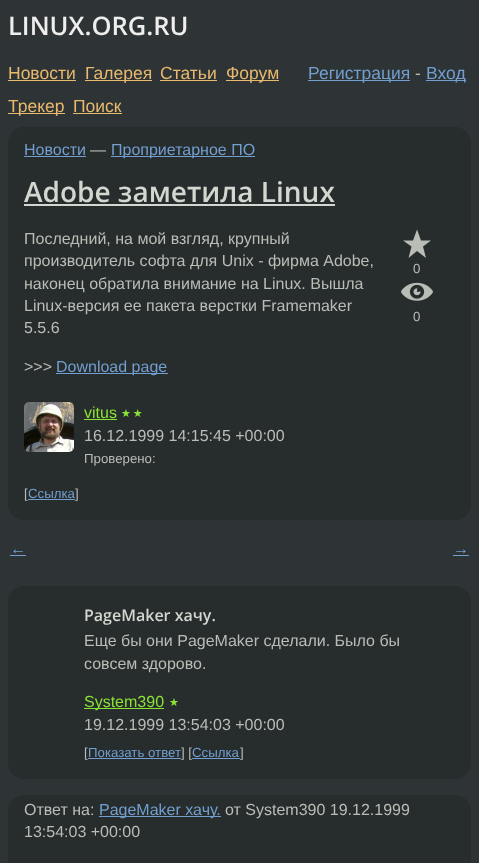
(async () => {
  const canvas = document.querySelector("canvas");
  canvas.width = 479;
  canvas.height = 863;
  const ctx = canvas.getContext("2d");
  ctx.miterLimit = 4;
  ctx.fontKerning = "normal";
  async function loadImage(src) {
    const img = new Image();
    img.src = src;
    await img.decode();
    return img;
  }
  let path;

  ctx.fillStyle = "#2e3436";
  ctx.fillRect(0, 0, 479, 863);
  for (const [x, y, w, h, color] of [
    [8, 80, 68, 1, "#e9b96e"],
    [85, 80, 67, 1, "#e9b96e"],
    [160, 80, 57, 1, "#e9b96e"],
    [226, 80, 53, 1, "#e9b96e"],
    [8, 113, 57, 1, "#e9b96e"],
    [73, 113, 49, 1, "#e9b96e"],
    [308, 80, 102, 1, "#729fcf"],
    [426, 80, 40, 1, "#729fcf"],
  ]) {
    ctx.fillStyle = color;
    ctx.fillRect(x, y, w, h);
  }
  ctx.fillStyle = "#272c2d";
  ctx.beginPath();
  ctx.roundRect(8, 127, 463, 393, 16);
  ctx.fill();
  for (const [x, y, w, h, color] of [
    [24, 156, 62, 1, "#729fcf"],
    [111, 156, 144, 1, "#729fcf"],
    [24, 204, 311, 2, "#d3d7cf"],
    [56, 373, 112, 1, "#729fcf"],
  ]) {
    ctx.fillStyle = color;
    ctx.fillRect(x, y, w, h);
  }
  ctx.fillStyle = "#babdb6";
  path = new Path2D("M417 229.5L421 240.5H431L423 246.5L426 258L417 251L408.5 258L411.5 246.5L403 240.5H413Z");
  ctx.fill(path);
  ctx.drawImage(await loadImage("img/1.png"), 401, 282, 32, 19);
  ctx.drawImage(await loadImage("img/2.png"), 24, 402, 50, 50);
  for (const [x, y, w, h, color] of [
    [84, 419, 33, 1, "#8ae234"],
    [28, 499, 47, 1, "#729fcf"],
    [10, 555, 16, 1, "#729fcf"],
    [453, 555, 16, 1, "#729fcf"],
  ]) {
    ctx.fillStyle = color;
    ctx.fillRect(x, y, w, h);
  }
  ctx.fillStyle = "#272c2d";
  ctx.beginPath();
  ctx.roundRect(8, 586, 463, 193, 16);
  ctx.fill();
  ctx.fillStyle = "#8ae234";
  ctx.fillRect(84, 708, 80, 1);
  ctx.fillStyle = "#729fcf";
  ctx.fillRect(88, 758, 93, 1);
  ctx.fillStyle = "#272c2d";
  ctx.beginPath();
  ctx.roundRect(8, 795, 463, 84, 16);
  ctx.fill();
  ctx.fillStyle = "#729fcf";
  ctx.fillRect(99, 816, 122, 1);
  ctx.font = "600 25.5px Open Sans";
  ctx.fillStyle = "#eeeeec";
  ctx.fillText("LINUX.ORG.RU", 8, 35);
  ctx.font = "17.5px Liberation Sans";
  ctx.fillStyle = "#e9b96e";
  for (const [text, x, y] of [
    ["Новости", 8, 79],
    ["Галерея", 85, 79],
    ["Статьи", 160, 79],
    ["Форум", 226, 79],
    ["Трекер", 8, 112],
    ["Поиск", 73, 112],
  ]) {
    ctx.fillText(text, x, y);
  }
  ctx.fillStyle = "#729fcf";
  ctx.fillText("Регистрация", 308, 79);
  ctx.fillStyle = "#babdb6";
  ctx.fillText("-", 415, 79);
  ctx.fillStyle = "#729fcf";
  ctx.fillText("Вход", 426, 79);
  ctx.font = "16px Liberation Sans";
  ctx.fillText("Новости", 24, 155);
  ctx.fillStyle = "#babdb6";
  ctx.fillText("—", 90, 155);
  ctx.fillStyle = "#729fcf";
  ctx.fillText("Проприетарное ПО", 111, 155);
  ctx.font = "600 28px Open Sans";
  ctx.fillStyle = "#d3d7cf";
  ctx.fillText("Adobe заметила Linux", 24, 202);
  ctx.font = "16px Liberation Sans";
  ctx.fillStyle = "#babdb6";
  for (const [text, x, y] of [
    ["Последний, на мой взгляд, крупный", 24, 244],
    ["производитель софта для Unix - фирма Adobe,", 24, 266],
    ["наконец обратила внимание на Linux. Вышла", 24, 289],
    ["Linux-версия ее пакета верстки Framemaker", 24, 311],
    ["5.5.6", 24, 333],
    [">>>", 24, 372],
  ]) {
    ctx.fillText(text, x, y);
  }
  ctx.fillStyle = "#729fcf";
  ctx.fillText("Download page", 56, 372);
  ctx.font = "13.25px Liberation Sans";
  ctx.fillStyle = "#babdb6";
  ctx.fillText("0", 413, 273);
  ctx.fillText("0", 413, 321);
  ctx.font = "16px Liberation Sans";
  ctx.fillStyle = "#8ae234";
  ctx.fillText("vitus", 84, 418);
  ctx.letterSpacing = "2px";
  ctx.font = "11px DejaVu Sans";
  ctx.fillText("★★", 121, 417);
  ctx.letterSpacing = "0px";
  ctx.font = "16px Liberation Sans";
  ctx.fillStyle = "#babdb6";
  ctx.fillText("16.12.1999 14:15:45 +00:00", 84, 441);
  ctx.font = "13.25px Liberation Sans";
  ctx.fillText("Проверено:", 84, 463);
  ctx.fillText("[", 24, 498);
  ctx.fillStyle = "#729fcf";
  ctx.fillText("Ссылка", 28, 498);
  ctx.fillStyle = "#babdb6";
  ctx.fillText("]", 75, 498);
  ctx.font = "16px Liberation Sans";
  ctx.fillStyle = "#729fcf";
  ctx.fillText("←", 10, 554);
  ctx.fillText("→", 453, 554);
  ctx.font = "600 16px Open Sans";
  ctx.fillStyle = "#d3d7cf";
  ctx.fillText("PageMaker хачу.", 84, 621);
  ctx.font = "16px Liberation Sans";
  ctx.fillStyle = "#babdb6";
  ctx.fillText("Еще бы они PageMaker сделали. Было бы", 84, 646);
  ctx.fillText("совсем здорово.", 84, 669);
  ctx.fillStyle = "#8ae234";
  ctx.fillText("System390", 84, 707);
  ctx.letterSpacing = "2px";
  ctx.font = "11px DejaVu Sans";
  ctx.fillText("★", 169, 706);
  ctx.letterSpacing = "0px";
  ctx.font = "16px Liberation Sans";
  ctx.fillStyle = "#babdb6";
  ctx.fillText("19.12.1999 13:54:03 +00:00", 84, 730);
  ctx.font = "13.25px Liberation Sans";
  ctx.fillText("[", 84, 757);
  ctx.fillStyle = "#729fcf";
  ctx.fillText("Показать ответ", 88, 757);
  ctx.fillStyle = "#babdb6";
  ctx.fillText("] [", 181, 757);
  ctx.fillStyle = "#729fcf";
  ctx.fillRect(192, 758, 48, 1);
  ctx.fillText("Ссылка", 192, 757);
  ctx.fillStyle = "#babdb6";
  ctx.fillText("]", 240, 757);
  ctx.font = "16px Liberation Sans";
  ctx.fillText("Ответ на:", 24, 815);
  ctx.fillStyle = "#729fcf";
  ctx.fillText("PageMaker хачу.", 99, 815);
  ctx.fillStyle = "#babdb6";
  ctx.fillText("от System390 19.12.1999", 225, 815);
  ctx.fillText("13:54:03 +00:00", 24, 837);
})();
